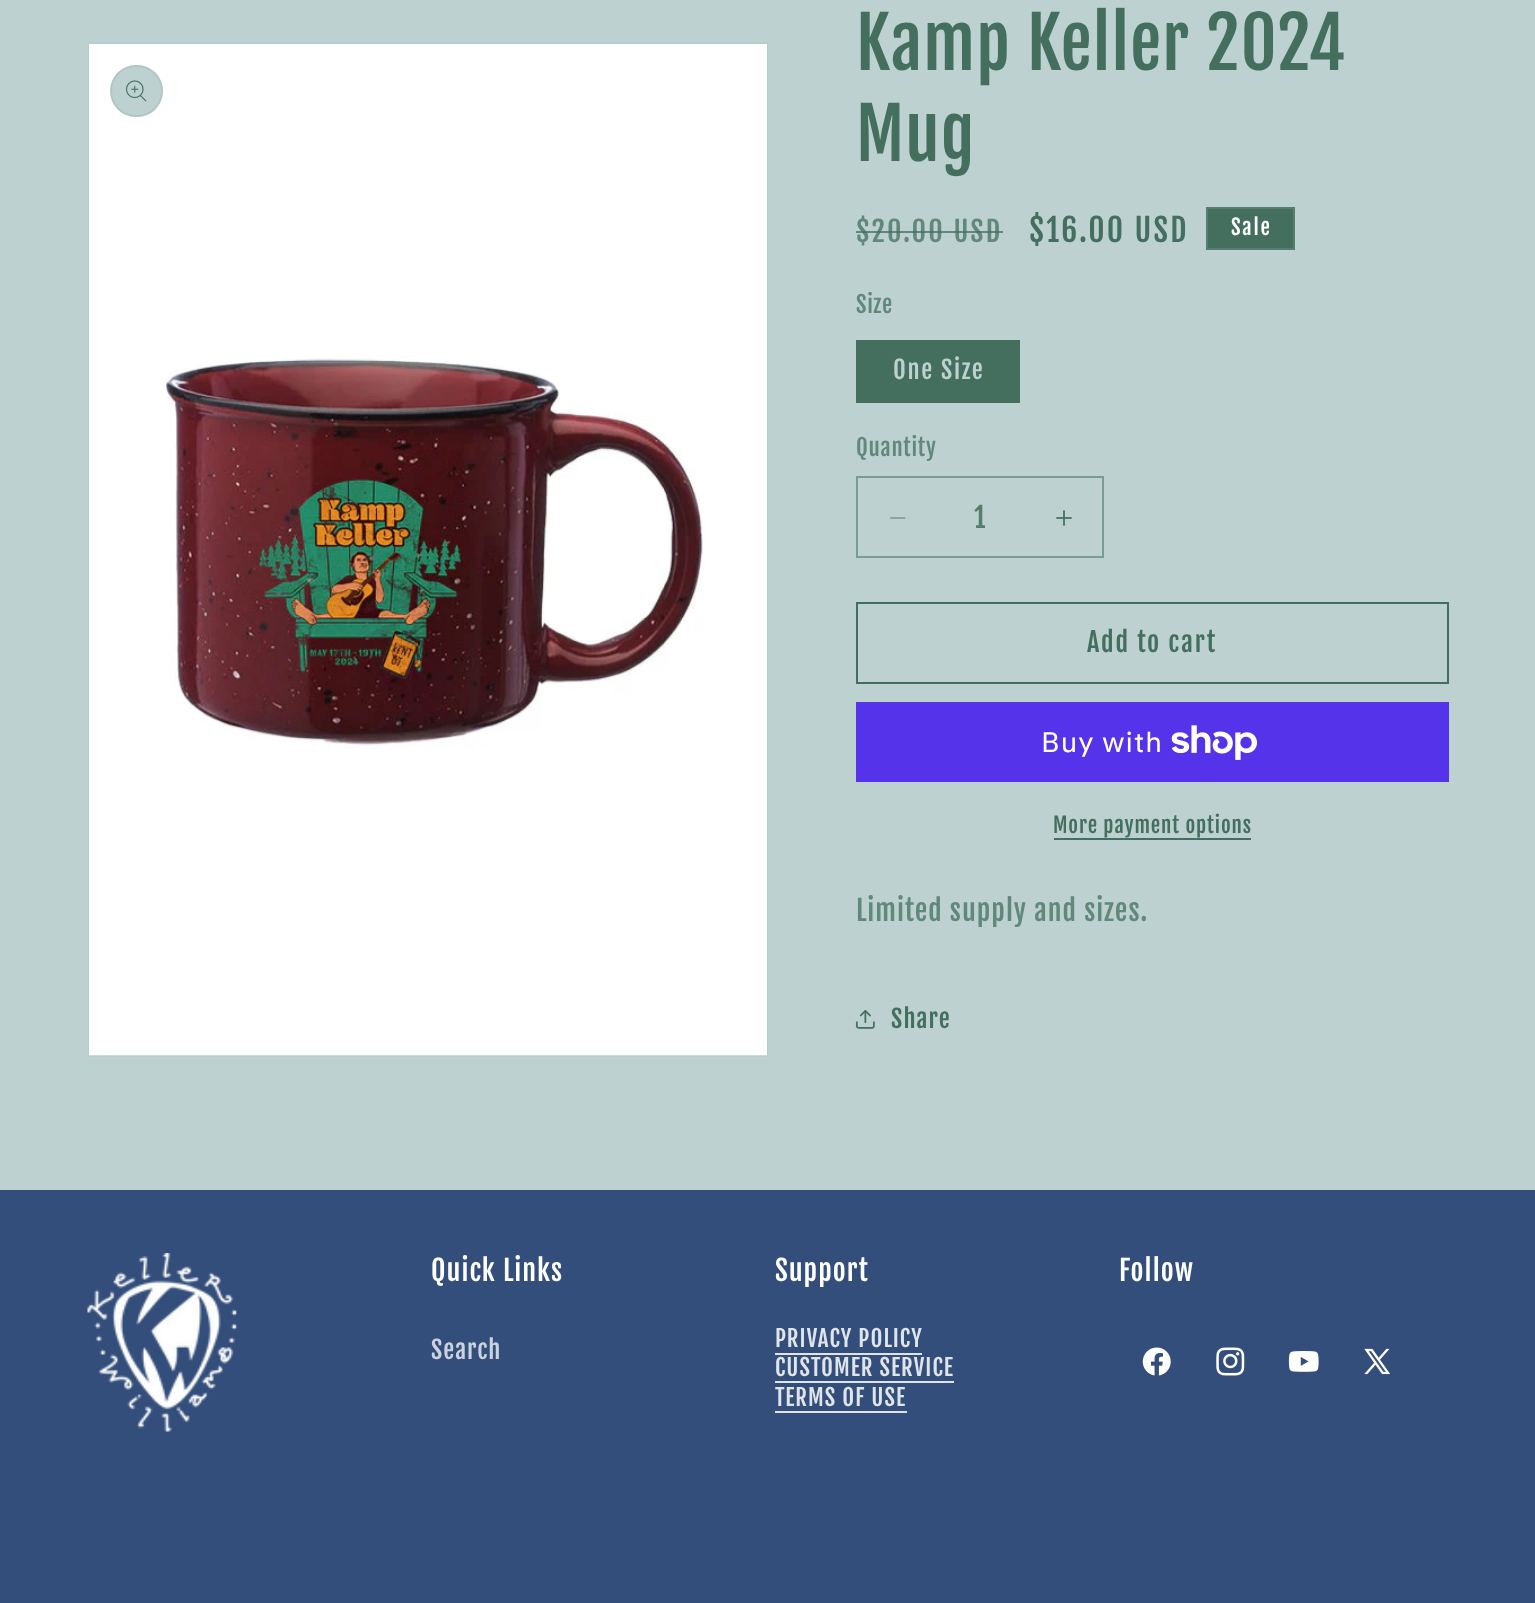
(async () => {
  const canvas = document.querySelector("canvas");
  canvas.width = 1535;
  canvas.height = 1603;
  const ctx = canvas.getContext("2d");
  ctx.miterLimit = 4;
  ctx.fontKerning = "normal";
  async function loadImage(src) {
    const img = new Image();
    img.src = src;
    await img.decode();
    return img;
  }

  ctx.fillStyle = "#bdd1d1";
  ctx.fillRect(0, 0, 1535, 1603);
  ctx.strokeStyle = "#b7cccb";
  ctx.lineWidth = 2;
  ctx.strokeRect(89, 43, 678, 1013);
  ctx.drawImage(await loadImage("img/1.png"), 89, 44, 678, 1012);
  ctx.beginPath();
  ctx.roundRect(110, 65, 53, 52, 26);
  ctx.fill();
  ctx.beginPath();
  ctx.roundRect(111, 66, 51, 50, 25);
  ctx.strokeStyle = "rgba(68, 111, 94, 0.1)";
  ctx.stroke();
  ctx.drawImage(await loadImage("img/2.png"), 126, 80, 21, 22);
  ctx.fillStyle = "#446f5e";
  ctx.beginPath();
  ctx.rect(1207, 208, 87, 41);
  ctx.fill();
  ctx.strokeStyle = "#577d6e";
  ctx.stroke();
  ctx.fillRect(856, 340, 164, 63);
  ctx.drawImage(await loadImage("img/3.png"), 890, 517, 16, 2);
  ctx.drawImage(await loadImage("img/4.png"), 1056, 510, 16, 16);
  ctx.strokeStyle = "#7a9b92";
  ctx.strokeRect(857, 477, 246, 80);
  ctx.strokeStyle = "#446f5e";
  ctx.strokeRect(857, 603, 591, 80);
  ctx.fillStyle = "#5433eb";
  ctx.fillRect(856, 702, 593, 80);
  ctx.drawImage(await loadImage("img/5.png"), 1171, 725, 86, 35);
  ctx.fillStyle = "#446f5e";
  ctx.fillRect(1054, 838, 197, 2);
  ctx.drawImage(await loadImage("img/6.png"), 855, 1010, 20, 19);
  ctx.fillStyle = "#334e7b";
  ctx.fillRect(0, 1190, 1535, 413);
  ctx.drawImage(await loadImage("img/7.png"), 87, 1253, 150, 179);
  for (const [x, y, w, h, color] of [
    [775, 1353, 147, 2, "#e0e4eb"],
    [775, 1381, 179, 2, "#e0e4eb"],
    [775, 1411, 132, 2, "#e0e4eb"],
  ]) {
    ctx.fillStyle = color;
    ctx.fillRect(x, y, w, h);
  }
  ctx.drawImage(await loadImage("img/8.png"), 1142, 1347, 29, 29);
  ctx.drawImage(await loadImage("img/9.png"), 1216, 1347, 29, 29);
  ctx.drawImage(await loadImage("img/10.png"), 1288, 1351, 31, 21);
  ctx.drawImage(await loadImage("img/11.png"), 1364, 1348, 26, 27);
  ctx.letterSpacing = "1.05px";
  ctx.font = "70px Fjalla One";
  ctx.fillStyle = "#446f5e";
  ctx.fillText("Kamp Keller 2024", 856, 70);
  ctx.fillText("Mug", 856, 161);
  ctx.letterSpacing = "2.25px";
  ctx.font = "28px Fjalla One";
  ctx.fillStyle = "#62887b";
  ctx.fillText("$20.00 USD", 856, 242);
  ctx.fillStyle = "rgba(68, 111, 94, 0.75)";
  ctx.fillRect(856, 231, 147, 2);
  ctx.font = "31.5px Fjalla One";
  ctx.fillStyle = "#446f5e";
  ctx.fillText("$16.00 USD", 1029, 242);
  ctx.letterSpacing = "1.75px";
  ctx.font = "21px Fjalla One";
  ctx.fillStyle = "#ffffff";
  ctx.fillText("Sale", 1231, 235);
  ctx.letterSpacing = "0.75px";
  ctx.font = "22.75px Fjalla One";
  ctx.fillStyle = "#62887b";
  ctx.fillText("Size", 856, 313);
  ctx.letterSpacing = "1.75px";
  ctx.font = "24.5px Fjalla One";
  ctx.fillStyle = "#bdd1d1";
  ctx.fillText("One Size", 893, 379);
  ctx.letterSpacing = "0.75px";
  ctx.font = "22.75px Fjalla One";
  ctx.fillStyle = "#62887b";
  ctx.fillText("Quantity", 856, 456);
  ctx.letterSpacing = "0px";
  ctx.font = "28px Fjalla One";
  ctx.fillStyle = "#567e6f";
  ctx.fillText("1", 974, 528);
  ctx.letterSpacing = "1.75px";
  ctx.font = "26.25px Fjalla One";
  ctx.fillStyle = "#446f5e";
  ctx.fillText("Add to cart", 1087, 652);
  ctx.letterSpacing = "1.05px";
  ctx.font = "28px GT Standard";
  ctx.fillStyle = "#ffffff";
  ctx.fillText("Buy with", 1041, 752);
  ctx.letterSpacing = "0.9px";
  ctx.font = "21px Fjalla One";
  ctx.fillStyle = "#446f5e";
  ctx.fillText("More payment options", 1053, 833);
  ctx.letterSpacing = "1.05px";
  ctx.font = "28px Fjalla One";
  ctx.fillStyle = "#62887b";
  ctx.fillText("Limited supply and sizes.", 856, 921);
  ctx.font = "24.5px Fjalla One";
  ctx.fillStyle = "#446f5e";
  ctx.fillText("Share", 891, 1028);
  ctx.font = "28px Fjalla One";
  ctx.fillStyle = "#ffffff";
  ctx.fillText("Quick Links", 431, 1281);
  ctx.font = "24.5px Fjalla One";
  ctx.fillStyle = "#ccd3de";
  ctx.fillText("Search", 431, 1359);
  ctx.font = "28px Fjalla One";
  ctx.fillStyle = "#ffffff";
  ctx.fillText("Support", 775, 1281);
  ctx.font = "22.75px Fjalla One";
  ctx.fillStyle = "#e0e4eb";
  for (const [text, x, y] of [
    ["PRIVACY POLICY", 775, 1347],
    ["CUSTOMER SERVICE", 775, 1376],
    ["TERMS OF USE", 775, 1406],
  ]) {
    ctx.fillText(text, x, y);
  }
  ctx.font = "28px Fjalla One";
  ctx.fillStyle = "#ffffff";
  ctx.fillText("Follow", 1119, 1281);
})();
